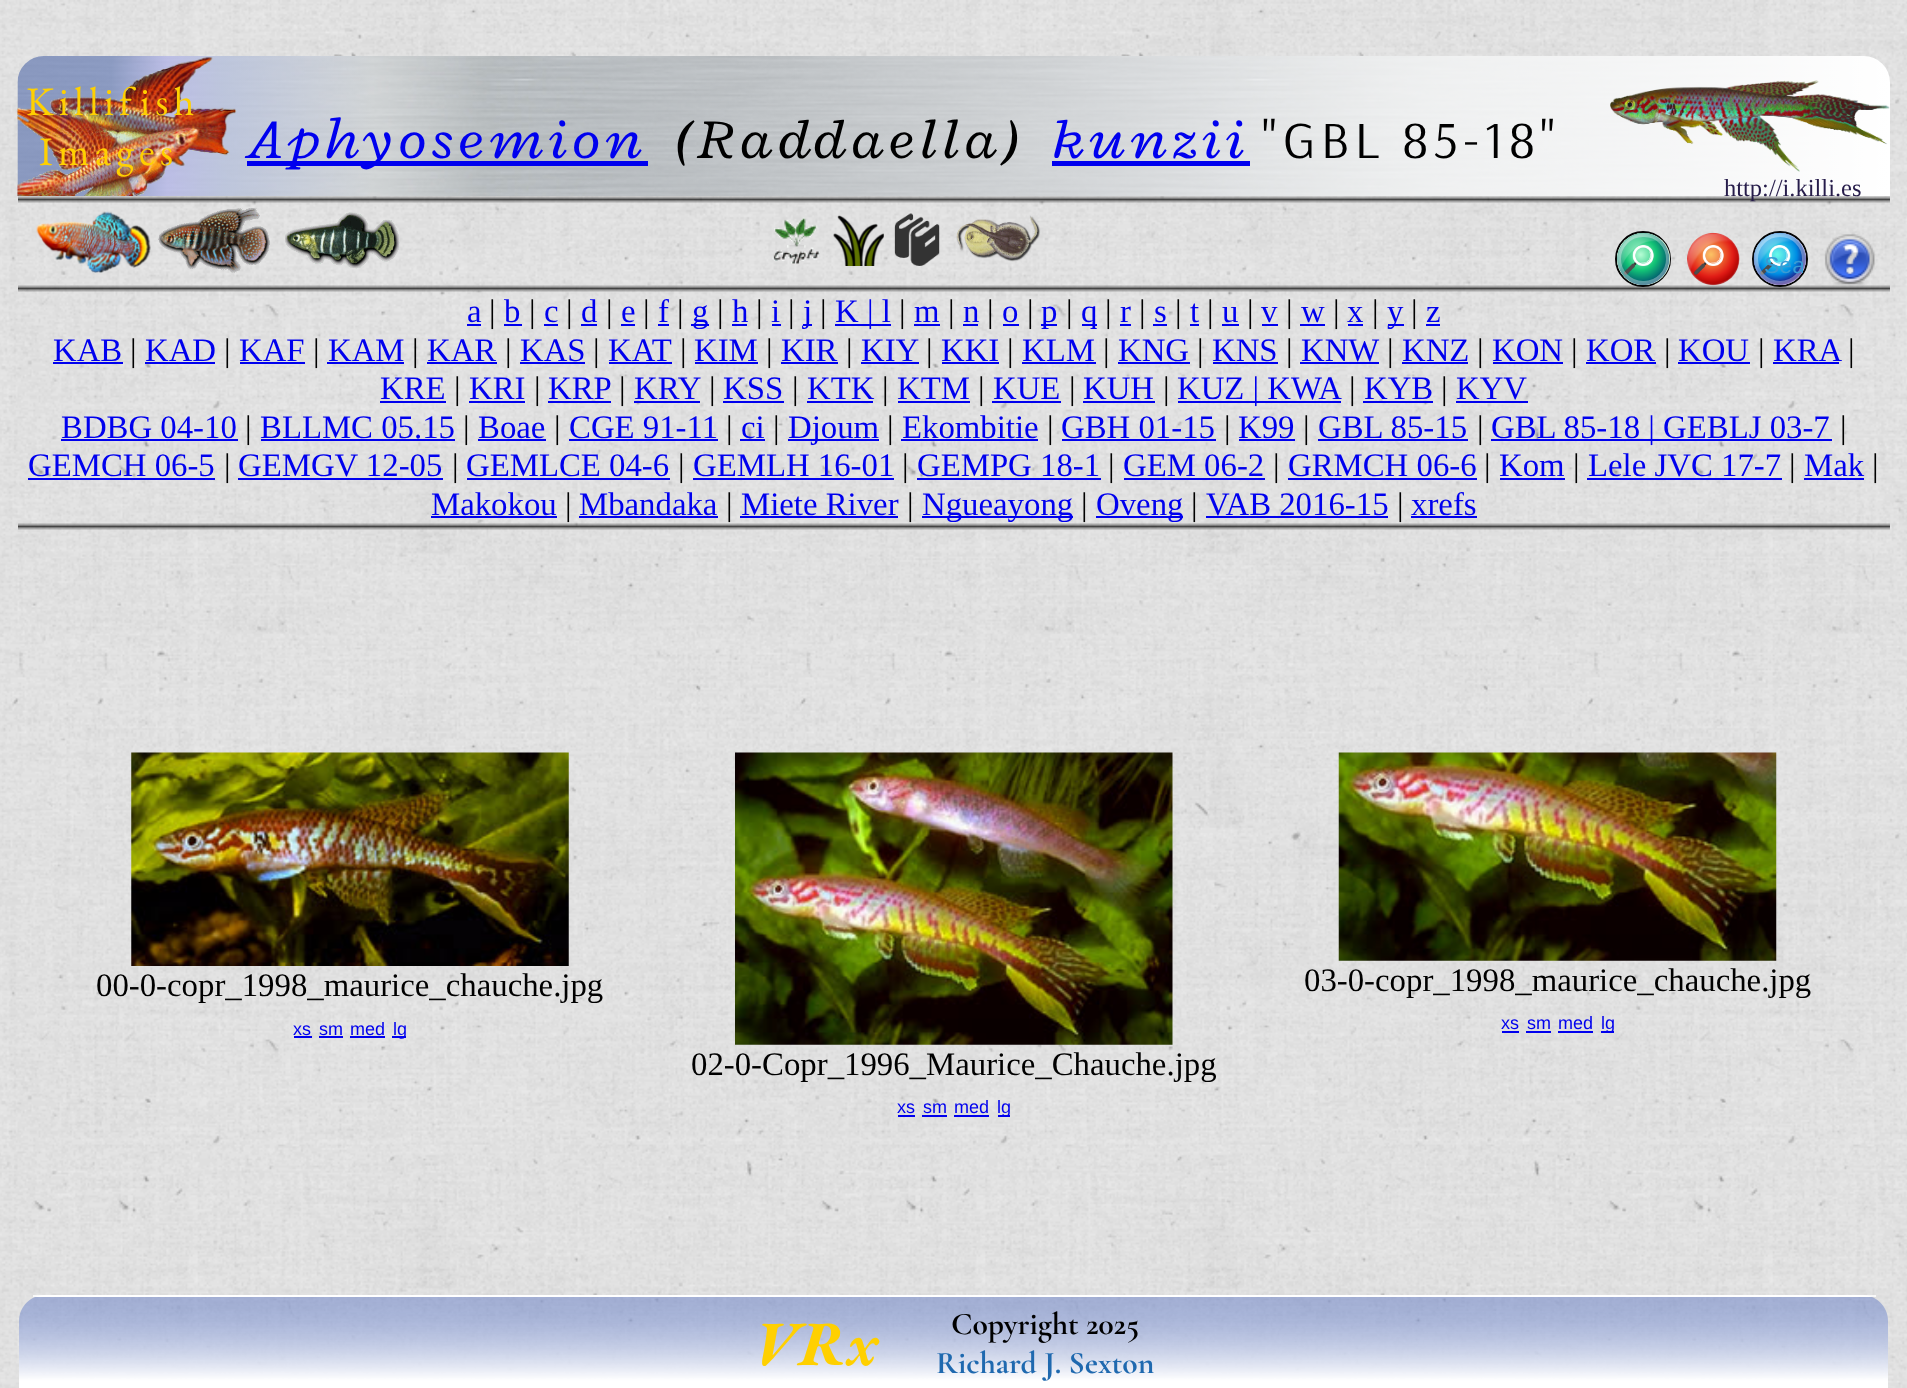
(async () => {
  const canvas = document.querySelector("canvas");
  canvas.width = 1907;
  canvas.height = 1388;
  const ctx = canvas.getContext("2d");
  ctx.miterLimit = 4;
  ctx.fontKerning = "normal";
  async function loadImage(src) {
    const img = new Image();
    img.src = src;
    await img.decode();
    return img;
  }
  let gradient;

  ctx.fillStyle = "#ffffff";
  ctx.fillRect(0, 0, 1907, 1388);
  ctx.drawImage(await loadImage("img/1.png"), 0, 0, 1907, 1388);
  ctx.drawImage(await loadImage("img/2.png"), 17, 56, 1873, 140);
  ctx.drawImage(await loadImage("img/3.png"), 17, 57, 220, 139);
  ctx.fillStyle = "#0000ee";
  ctx.fillRect(247, 161, 401, 5);
  ctx.fillRect(1052, 161, 198, 5);
  ctx.drawImage(await loadImage("img/4.png"), 1610, 80, 280, 92);
  ctx.drawImage(await loadImage("img/5.png"), 36, 211, 115, 62);
  ctx.drawImage(await loadImage("img/6.png"), 158, 208, 112, 65);
  ctx.drawImage(await loadImage("img/7.png"), 285, 212, 115, 57);
  ctx.drawImage(await loadImage("img/8.png"), 772, 217, 48, 48);
  ctx.drawImage(await loadImage("img/9.png"), 833, 215, 51, 51);
  ctx.drawImage(await loadImage("img/10.png"), 894, 213, 46, 53);
  ctx.drawImage(await loadImage("img/11.png"), 956, 215, 85, 47);
  ctx.drawImage(await loadImage("img/13.png"), 1687, 232, 53, 54);
  gradient = ctx.createLinearGradient(954, 292, 954, 285);
  gradient.addColorStop(0, "rgba(150, 150, 150, 0.2)");
  gradient.addColorStop(0.5, "rgba(0, 0, 0, 0.7)");
  gradient.addColorStop(1, "rgba(150, 150, 150, 0.2)");
  ctx.fillStyle = gradient;
  ctx.fillRect(18, 285, 1872, 7);
  ctx.beginPath();
  ctx.arc(1643, 259, 27, 0, Math.PI * 2);
  ctx.strokeStyle = "rgba(0, 0, 0, 0.99)";
  ctx.lineWidth = 2;
  ctx.stroke();
  ctx.fillStyle = "#d0ffd0";
  ctx.beginPath();
  ctx.roundRect(1617, 233, 53, 52, 26);
  ctx.fill();
  ctx.drawImage(await loadImage("img/12.png"), 1617, 232, 53, 54);
  ctx.beginPath();
  ctx.roundRect(1619, 235, 49, 48, 24);
  ctx.strokeStyle = "rgba(255, 255, 255, 0.35)";
  ctx.lineWidth = 4;
  ctx.stroke();
  ctx.beginPath();
  ctx.arc(1780, 259, 27, 0, Math.PI * 2);
  ctx.strokeStyle = "rgba(0, 0, 0, 0.99)";
  ctx.lineWidth = 2;
  ctx.stroke();
  ctx.fillStyle = "#d0d0ff";
  ctx.beginPath();
  ctx.arc(1780, 259, 26, 0, Math.PI * 2);
  ctx.fill();
  ctx.drawImage(await loadImage("img/14.png"), 1753, 232, 53, 54);
  ctx.beginPath();
  ctx.arc(1780, 259, 24, 0, Math.PI * 2);
  ctx.strokeStyle = "rgba(255, 255, 255, 0.35)";
  ctx.lineWidth = 4;
  ctx.stroke();
  ctx.drawImage(await loadImage("img/15.png"), 1824, 234, 51, 52);
  for (const [x, y, w, h, color] of [
    [467, 324, 14, 2, "#0000ee"],
    [504, 324, 18, 2, "#0000ee"],
    [544, 324, 14, 2, "#0000ee"],
    [581, 324, 16, 2, "#0000ee"],
    [621, 324, 14, 2, "#0000ee"],
    [658, 324, 11, 2, "#0000ee"],
    [691, 324, 18, 2, "#0000ee"],
    [732, 324, 15, 2, "#0000ee"],
    [772, 324, 9, 2, "#0000ee"],
    [803, 324, 9, 2, "#0000ee"],
    [835, 324, 56, 2, "#0000ee"],
    [914, 324, 26, 2, "#0000ee"],
    [963, 324, 15, 2, "#0000ee"],
    [1003, 324, 16, 2, "#0000ee"],
    [1041, 324, 16, 2, "#0000ee"],
    [1082, 324, 15, 2, "#0000ee"],
    [1120, 324, 11, 2, "#0000ee"],
    [1153, 324, 14, 2, "#0000ee"],
    [1190, 324, 9, 2, "#0000ee"],
    [1222, 324, 17, 2, "#0000ee"],
    [1262, 324, 16, 2, "#0000ee"],
    [1300, 324, 25, 2, "#0000ee"],
    [1348, 324, 15, 2, "#0000ee"],
    [1388, 324, 16, 2, "#0000ee"],
    [1426, 324, 14, 2, "#0000ee"],
    [53, 362, 70, 2, "#0000ee"],
    [145, 362, 70, 2, "#0000ee"],
    [240, 362, 65, 2, "#0000ee"],
    [327, 362, 77, 2, "#0000ee"],
    [427, 362, 70, 2, "#0000ee"],
    [520, 362, 65, 2, "#0000ee"],
    [609, 362, 63, 2, "#0000ee"],
    [695, 362, 63, 2, "#0000ee"],
    [781, 362, 57, 2, "#0000ee"],
    [861, 362, 58, 2, "#0000ee"],
    [942, 362, 57, 2, "#0000ee"],
    [1022, 362, 74, 2, "#0000ee"],
    [1118, 362, 72, 2, "#0000ee"],
    [1213, 362, 65, 2, "#0000ee"],
    [1300, 362, 79, 2, "#0000ee"],
    [1402, 362, 66, 2, "#0000ee"],
    [1493, 362, 70, 2, "#0000ee"],
    [1586, 362, 70, 2, "#0000ee"],
    [1678, 362, 72, 2, "#0000ee"],
    [1773, 362, 66, 2, "#0000ee"],
    [380, 401, 66, 2, "#0000ee"],
    [469, 401, 56, 2, "#0000ee"],
    [548, 401, 63, 2, "#0000ee"],
    [634, 401, 66, 2, "#0000ee"],
    [723, 401, 61, 2, "#0000ee"],
    [807, 401, 66, 2, "#0000ee"],
    [898, 401, 72, 2, "#0000ee"],
    [992, 401, 69, 2, "#0000ee"],
    [1083, 401, 72, 2, "#0000ee"],
    [1178, 401, 163, 2, "#0000ee"],
    [1363, 401, 70, 2, "#0000ee"],
    [1456, 401, 72, 2, "#0000ee"],
    [61, 439, 177, 2, "#0000ee"],
    [261, 439, 194, 2, "#0000ee"],
    [478, 439, 68, 2, "#0000ee"],
    [569, 439, 149, 2, "#0000ee"],
    [740, 439, 25, 2, "#0000ee"],
    [788, 439, 91, 2, "#0000ee"],
    [901, 439, 137, 2, "#0000ee"],
    [1062, 439, 154, 2, "#0000ee"],
    [1239, 439, 56, 2, "#0000ee"],
    [1318, 439, 150, 2, "#0000ee"],
    [1491, 439, 341, 2, "#0000ee"],
    [28, 478, 187, 2, "#0000ee"],
    [238, 478, 205, 2, "#0000ee"],
    [467, 478, 203, 2, "#0000ee"],
    [693, 478, 201, 2, "#0000ee"],
    [917, 478, 184, 2, "#0000ee"],
    [1124, 478, 141, 2, "#0000ee"],
    [1288, 478, 189, 2, "#0000ee"],
    [1500, 478, 65, 2, "#0000ee"],
    [1587, 478, 195, 2, "#0000ee"],
    [1804, 478, 60, 2, "#0000ee"],
    [431, 516, 126, 2, "#0000ee"],
    [579, 516, 139, 2, "#0000ee"],
    [740, 516, 158, 2, "#0000ee"],
    [922, 516, 151, 2, "#0000ee"],
    [1096, 516, 87, 2, "#0000ee"],
    [1206, 516, 182, 2, "#0000ee"],
    [1411, 516, 66, 2, "#0000ee"],
  ]) {
    ctx.fillStyle = color;
    ctx.fillRect(x, y, w, h);
  }
  ctx.drawImage(await loadImage("img/16.png"), 131, 752, 438, 214);
  for (const [x, y, w, h, color] of [
    [294, 1036, 18, 2, "#0000ee"],
    [319, 1036, 24, 2, "#0000ee"],
    [350, 1036, 35, 2, "#0000ee"],
    [392, 1036, 14, 2, "#0000ee"],
  ]) {
    ctx.fillStyle = color;
    ctx.fillRect(x, y, w, h);
  }
  ctx.drawImage(await loadImage("img/17.png"), 1338, 752, 439, 209);
  for (const [x, y, w, h, color] of [
    [1502, 1031, 17, 2, "#0000ee"],
    [1526, 1031, 25, 2, "#0000ee"],
    [1558, 1031, 35, 2, "#0000ee"],
    [1601, 1031, 13, 2, "#0000ee"],
  ]) {
    ctx.fillStyle = color;
    ctx.fillRect(x, y, w, h);
  }
  ctx.drawImage(await loadImage("img/18.png"), 735, 752, 438, 293);
  for (const [x, y, w, h, color] of [
    [898, 1115, 17, 2, "#0000ee"],
    [922, 1115, 25, 2, "#0000ee"],
    [954, 1115, 35, 2, "#0000ee"],
    [998, 1115, 12, 2, "#0000ee"],
    [33, 1295, 1843, 2, "rgba(255, 255, 255, 0.8)"],
  ]) {
    ctx.fillStyle = color;
    ctx.fillRect(x, y, w, h);
  }
  ctx.letterSpacing = "5.25px";
  ctx.font = "40.5px EB Garamond";
  ctx.fillStyle = "#ffd000";
  ctx.fillText("Killifish", 26, 115);
  ctx.fillText("Images", 39, 165);
  ctx.font = "italic 59px Radley";
  ctx.fillStyle = "#0000ee";
  ctx.fillText("Aphyosemion", 247, 158);
  ctx.fillStyle = "#000000";
  ctx.fillText("(Raddaella)", 675, 158);
  ctx.fillStyle = "#0000ee";
  ctx.fillText("kunzii", 1053, 158);
  ctx.font = "52.5px Arsenal";
  ctx.fillStyle = "#000000";
  ctx.fillText("\"GBL 85-18\"", 1262, 158);
  ctx.letterSpacing = "0px";
  ctx.font = "24.5px Liberation Serif";
  ctx.fillStyle = "#261c4a";
  ctx.fillText("http://i.killi.es", 1724, 196);
  ctx.save();
  ctx.beginPath();
  ctx.rect(1764, 252, 39, 26);
  ctx.clip();
  ctx.font = "23px Liberation Sans";
  ctx.fillStyle = "#399bd4";
  ctx.fillText("Sea", 1764, 273);
  ctx.restore();
  ctx.font = "32.8px Liberation Serif";
  ctx.fillStyle = "#0000ee";
  ctx.fillText("a", 467, 322);
  ctx.fillStyle = "#000000";
  ctx.fillText("|", 489, 322);
  ctx.fillStyle = "#0000ee";
  ctx.fillText("b", 504, 322);
  ctx.fillStyle = "#000000";
  ctx.fillText("|", 529, 322);
  ctx.fillStyle = "#0000ee";
  ctx.fillText("c", 544, 322);
  ctx.fillStyle = "#000000";
  ctx.fillText("|", 566, 322);
  ctx.fillStyle = "#0000ee";
  ctx.fillText("d", 581, 322);
  ctx.fillStyle = "#000000";
  ctx.fillText("|", 606, 322);
  ctx.fillStyle = "#0000ee";
  ctx.fillText("e", 621, 322);
  ctx.fillStyle = "#000000";
  ctx.fillText("|", 643, 322);
  ctx.fillStyle = "#0000ee";
  ctx.fillText("f", 658, 322);
  ctx.fillStyle = "#000000";
  ctx.fillText("|", 677, 322);
  ctx.fillStyle = "#0000ee";
  ctx.fillText("g", 692, 322);
  ctx.fillStyle = "#000000";
  ctx.fillText("|", 717, 322);
  ctx.fillStyle = "#0000ee";
  ctx.fillText("h", 732, 322);
  ctx.fillStyle = "#000000";
  ctx.fillText("|", 756, 322);
  ctx.fillStyle = "#0000ee";
  ctx.fillText("i", 771, 322);
  ctx.fillStyle = "#000000";
  ctx.fillText("|", 788, 322);
  ctx.fillStyle = "#0000ee";
  ctx.fillText("j", 803, 322);
  ctx.fillStyle = "#000000";
  ctx.fillText("|", 820, 322);
  ctx.fillStyle = "#0000ee";
  ctx.fillText("K | l", 835, 322);
  ctx.fillStyle = "#000000";
  ctx.fillText("|", 899, 322);
  ctx.fillStyle = "#0000ee";
  ctx.fillText("m", 914, 322);
  ctx.fillStyle = "#000000";
  ctx.fillText("|", 948, 322);
  ctx.fillStyle = "#0000ee";
  ctx.fillText("n", 963, 322);
  ctx.fillStyle = "#000000";
  ctx.fillText("|", 987, 322);
  ctx.fillStyle = "#0000ee";
  ctx.fillText("o", 1002, 322);
  ctx.fillStyle = "#000000";
  ctx.fillText("|", 1027, 322);
  ctx.fillStyle = "#0000ee";
  ctx.fillText("p", 1041, 322);
  ctx.fillStyle = "#000000";
  ctx.fillText("|", 1066, 322);
  ctx.fillStyle = "#0000ee";
  ctx.fillText("q", 1081, 322);
  ctx.fillStyle = "#000000";
  ctx.fillText("|", 1105, 322);
  ctx.fillStyle = "#0000ee";
  ctx.fillText("r", 1120, 322);
  ctx.fillStyle = "#000000";
  ctx.fillText("|", 1139, 322);
  ctx.fillStyle = "#0000ee";
  ctx.fillText("s", 1154, 322);
  ctx.fillStyle = "#000000";
  ctx.fillText("|", 1175, 322);
  ctx.fillStyle = "#0000ee";
  ctx.fillText("t", 1190, 322);
  ctx.fillStyle = "#000000";
  ctx.fillText("|", 1207, 322);
  ctx.fillStyle = "#0000ee";
  ctx.fillText("u", 1222, 322);
  ctx.fillStyle = "#000000";
  ctx.fillText("|", 1247, 322);
  ctx.fillStyle = "#0000ee";
  ctx.fillText("v", 1261, 322);
  ctx.fillStyle = "#000000";
  ctx.fillText("|", 1286, 322);
  ctx.fillStyle = "#0000ee";
  ctx.fillText("w", 1301, 322);
  ctx.fillStyle = "#000000";
  ctx.fillText("|", 1333, 322);
  ctx.fillStyle = "#0000ee";
  ctx.fillText("x", 1347, 322);
  ctx.fillStyle = "#000000";
  ctx.fillText("|", 1372, 322);
  ctx.fillStyle = "#0000ee";
  ctx.fillText("y", 1387, 322);
  ctx.fillStyle = "#000000";
  ctx.fillText("|", 1411, 322);
  ctx.fillStyle = "#0000ee";
  ctx.fillText("z", 1426, 322);
  ctx.fillText("KAB", 53, 361);
  ctx.fillStyle = "#000000";
  ctx.fillText("|", 130, 361);
  ctx.fillStyle = "#0000ee";
  ctx.fillText("KAD", 145, 361);
  ctx.fillStyle = "#000000";
  ctx.fillText("|", 224, 361);
  ctx.fillStyle = "#0000ee";
  ctx.fillText("KAF", 239, 361);
  ctx.fillStyle = "#000000";
  ctx.fillText("|", 313, 361);
  ctx.fillStyle = "#0000ee";
  ctx.fillText("KAM", 328, 361);
  ctx.fillStyle = "#000000";
  ctx.fillText("|", 412, 361);
  ctx.fillStyle = "#0000ee";
  ctx.fillText("KAR", 427, 361);
  ctx.fillStyle = "#000000";
  ctx.fillText("|", 505, 361);
  ctx.fillStyle = "#0000ee";
  ctx.fillText("KAS", 520, 361);
  ctx.fillStyle = "#000000";
  ctx.fillText("|", 593, 361);
  ctx.fillStyle = "#0000ee";
  ctx.fillText("KAT", 608, 361);
  ctx.fillStyle = "#000000";
  ctx.fillText("|", 680, 361);
  ctx.fillStyle = "#0000ee";
  ctx.fillText("KIM", 694, 361);
  ctx.fillStyle = "#000000";
  ctx.fillText("|", 766, 361);
  ctx.fillStyle = "#0000ee";
  ctx.fillText("KIR", 781, 361);
  ctx.fillStyle = "#000000";
  ctx.fillText("|", 846, 361);
  ctx.fillStyle = "#0000ee";
  ctx.fillText("KIY", 861, 361);
  ctx.fillStyle = "#000000";
  ctx.fillText("|", 926, 361);
  ctx.fillStyle = "#0000ee";
  ctx.fillText("KKI", 941, 361);
  ctx.fillStyle = "#000000";
  ctx.fillText("|", 1007, 361);
  ctx.fillStyle = "#0000ee";
  ctx.fillText("KLM", 1022, 361);
  ctx.fillStyle = "#000000";
  ctx.fillText("|", 1103, 361);
  ctx.fillStyle = "#0000ee";
  ctx.fillText("KNG", 1118, 361);
  ctx.fillStyle = "#000000";
  ctx.fillText("|", 1197, 361);
  ctx.fillStyle = "#0000ee";
  ctx.fillText("KNS", 1212, 361);
  ctx.fillStyle = "#000000";
  ctx.fillText("|", 1286, 361);
  ctx.fillStyle = "#0000ee";
  ctx.fillText("KNW", 1301, 361);
  ctx.fillStyle = "#000000";
  ctx.fillText("|", 1387, 361);
  ctx.fillStyle = "#0000ee";
  ctx.fillText("KNZ", 1402, 361);
  ctx.fillStyle = "#000000";
  ctx.fillText("|", 1477, 361);
  ctx.fillStyle = "#0000ee";
  ctx.fillText("KON", 1492, 361);
  ctx.fillStyle = "#000000";
  ctx.fillText("|", 1571, 361);
  ctx.fillStyle = "#0000ee";
  ctx.fillText("KOR", 1586, 361);
  ctx.fillStyle = "#000000";
  ctx.fillText("|", 1664, 361);
  ctx.fillStyle = "#0000ee";
  ctx.fillText("KOU", 1678, 361);
  ctx.fillStyle = "#000000";
  ctx.fillText("|", 1758, 361);
  ctx.fillStyle = "#0000ee";
  ctx.fillText("KRA", 1773, 361);
  ctx.fillStyle = "#000000";
  ctx.fillText("|", 1848, 361);
  ctx.fillStyle = "#0000ee";
  ctx.fillText("KRE", 380, 399);
  ctx.fillStyle = "#000000";
  ctx.fillText("|", 454, 399);
  ctx.fillStyle = "#0000ee";
  ctx.fillText("KRI", 469, 399);
  ctx.fillStyle = "#000000";
  ctx.fillText("|", 534, 399);
  ctx.fillStyle = "#0000ee";
  ctx.fillText("KRP", 548, 399);
  ctx.fillStyle = "#000000";
  ctx.fillText("|", 619, 399);
  ctx.fillStyle = "#0000ee";
  ctx.fillText("KRY", 634, 399);
  ctx.fillStyle = "#000000";
  ctx.fillText("|", 709, 399);
  ctx.fillStyle = "#0000ee";
  ctx.fillText("KSS", 723, 399);
  ctx.fillStyle = "#000000";
  ctx.fillText("|", 792, 399);
  ctx.fillStyle = "#0000ee";
  ctx.fillText("KTK", 807, 399);
  ctx.fillStyle = "#000000";
  ctx.fillText("|", 882, 399);
  ctx.fillStyle = "#0000ee";
  ctx.fillText("KTM", 897, 399);
  ctx.fillStyle = "#000000";
  ctx.fillText("|", 978, 399);
  ctx.fillStyle = "#0000ee";
  ctx.fillText("KUE", 993, 399);
  ctx.fillStyle = "#000000";
  ctx.fillText("|", 1069, 399);
  ctx.fillStyle = "#0000ee";
  ctx.fillText("KUH", 1083, 399);
  ctx.fillStyle = "#000000";
  ctx.fillText("|", 1163, 399);
  ctx.fillStyle = "#0000ee";
  ctx.fillText("KUZ | KWA", 1177, 399);
  ctx.fillStyle = "#000000";
  ctx.fillText("|", 1349, 399);
  ctx.fillStyle = "#0000ee";
  ctx.fillText("KYB", 1364, 399);
  ctx.fillStyle = "#000000";
  ctx.fillText("|", 1441, 399);
  ctx.fillStyle = "#0000ee";
  ctx.fillText("KYV", 1456, 399);
  ctx.fillText("BDBG 04-10", 61, 438);
  ctx.fillStyle = "#000000";
  ctx.fillText("|", 245, 438);
  ctx.fillStyle = "#0000ee";
  ctx.fillText("BLLMC 05.15", 260, 438);
  ctx.fillStyle = "#000000";
  ctx.fillText("|", 463, 438);
  ctx.fillStyle = "#0000ee";
  ctx.fillText("Boae", 478, 438);
  ctx.fillStyle = "#000000";
  ctx.fillText("|", 554, 438);
  ctx.fillStyle = "#0000ee";
  ctx.fillText("CGE 91-11", 569, 438);
  ctx.fillStyle = "#000000";
  ctx.fillText("|", 726, 438);
  ctx.fillStyle = "#0000ee";
  ctx.fillText("ci", 741, 438);
  ctx.fillStyle = "#000000";
  ctx.fillText("|", 773, 438);
  ctx.fillStyle = "#0000ee";
  ctx.fillText("Djoum", 788, 438);
  ctx.fillStyle = "#000000";
  ctx.fillText("|", 887, 438);
  ctx.fillStyle = "#0000ee";
  ctx.fillText("Ekombitie", 902, 438);
  ctx.fillStyle = "#000000";
  ctx.fillText("|", 1047, 438);
  ctx.fillStyle = "#0000ee";
  ctx.fillText("GBH 01-15", 1061, 438);
  ctx.fillStyle = "#000000";
  ctx.fillText("|", 1224, 438);
  ctx.fillStyle = "#0000ee";
  ctx.fillText("K99", 1238, 438);
  ctx.fillStyle = "#000000";
  ctx.fillText("|", 1303, 438);
  ctx.fillStyle = "#0000ee";
  ctx.fillText("GBL 85-15", 1318, 438);
  ctx.fillStyle = "#000000";
  ctx.fillText("|", 1477, 438);
  ctx.fillStyle = "#0000ee";
  ctx.fillText("GBL 85-18 | GEBLJ 03-7", 1491, 438);
  ctx.fillStyle = "#000000";
  ctx.fillText("|", 1840, 438);
  ctx.fillStyle = "#0000ee";
  ctx.fillText("GEMCH 06-5", 28, 476);
  ctx.fillStyle = "#000000";
  ctx.fillText("|", 224, 476);
  ctx.fillStyle = "#0000ee";
  ctx.fillText("GEMGV 12-05", 238, 476);
  ctx.fillStyle = "#000000";
  ctx.fillText("|", 452, 476);
  ctx.fillStyle = "#0000ee";
  ctx.fillText("GEMLCE 04-6", 466, 476);
  ctx.fillStyle = "#000000";
  ctx.fillText("|", 678, 476);
  ctx.fillStyle = "#0000ee";
  ctx.fillText("GEMLH 16-01", 693, 476);
  ctx.fillStyle = "#000000";
  ctx.fillText("|", 902, 476);
  ctx.fillStyle = "#0000ee";
  ctx.fillText("GEMPG 18-1", 917, 476);
  ctx.fillStyle = "#000000";
  ctx.fillText("|", 1108, 476);
  ctx.fillStyle = "#0000ee";
  ctx.fillText("GEM 06-2", 1123, 476);
  ctx.fillStyle = "#000000";
  ctx.fillText("|", 1273, 476);
  ctx.fillStyle = "#0000ee";
  ctx.fillText("GRMCH 06-6", 1288, 476);
  ctx.fillStyle = "#000000";
  ctx.fillText("|", 1484, 476);
  ctx.fillStyle = "#0000ee";
  ctx.fillText("Kom", 1499, 476);
  ctx.fillStyle = "#000000";
  ctx.fillText("|", 1573, 476);
  ctx.fillStyle = "#0000ee";
  ctx.fillText("Lele JVC 17-7", 1588, 476);
  ctx.fillStyle = "#000000";
  ctx.fillText("|", 1789, 476);
  ctx.fillStyle = "#0000ee";
  ctx.fillText("Mak", 1804, 476);
  ctx.fillStyle = "#000000";
  ctx.fillText("|", 1872, 476);
  ctx.fillStyle = "#0000ee";
  ctx.fillText("Makokou", 431, 515);
  ctx.fillStyle = "#000000";
  ctx.fillText("|", 565, 515);
  ctx.fillStyle = "#0000ee";
  ctx.fillText("Mbandaka", 579, 515);
  ctx.fillStyle = "#000000";
  ctx.fillText("|", 726, 515);
  ctx.fillStyle = "#0000ee";
  ctx.fillText("Miete River", 741, 515);
  ctx.fillStyle = "#000000";
  ctx.fillText("|", 907, 515);
  ctx.fillStyle = "#0000ee";
  ctx.fillText("Ngueayong", 922, 515);
  ctx.fillStyle = "#000000";
  ctx.fillText("|", 1081, 515);
  ctx.fillStyle = "#0000ee";
  ctx.fillText("Oveng", 1096, 515);
  ctx.fillStyle = "#000000";
  ctx.fillText("|", 1191, 515);
  ctx.fillStyle = "#0000ee";
  ctx.fillText("VAB 2016-15", 1206, 515);
  ctx.fillStyle = "#000000";
  ctx.fillText("|", 1397, 515);
  ctx.fillStyle = "#0000ee";
  ctx.fillText("xrefs", 1411, 515);
  ctx.fillStyle = "#000000";
  ctx.fillText("00-0-copr_1998_maurice_chauche.jpg", 96, 996);
  ctx.font = "18px Liberation Sans";
  ctx.fillStyle = "#0000ee";
  for (const [text, x, y] of [
    ["xs", 293, 1035],
    ["sm", 319, 1035],
    ["med", 350, 1035],
    ["lg", 393, 1035],
  ]) {
    ctx.fillText(text, x, y);
  }
  ctx.font = "32.8px Liberation Serif";
  ctx.fillStyle = "#000000";
  ctx.fillText("03-0-copr_1998_maurice_chauche.jpg", 1304, 991);
  ctx.font = "18px Liberation Sans";
  ctx.fillStyle = "#0000ee";
  for (const [text, x, y] of [
    ["xs", 1501, 1029],
    ["sm", 1527, 1029],
    ["med", 1558, 1029],
    ["lg", 1601, 1029],
  ]) {
    ctx.fillText(text, x, y);
  }
  ctx.font = "32.8px Liberation Serif";
  ctx.fillStyle = "#000000";
  ctx.fillText("02-0-Copr_1996_Maurice_Chauche.jpg", 691, 1075);
  ctx.font = "18px Liberation Sans";
  ctx.fillStyle = "#0000ee";
  for (const [text, x, y] of [
    ["xs", 897, 1113],
    ["sm", 923, 1113],
    ["med", 954, 1113],
    ["lg", 997, 1113],
  ]) {
    ctx.fillText(text, x, y);
  }
  ctx.font = "italic bold 63px EB Garamond";
  ctx.fillStyle = "#ffd000";
  ctx.fillText("VRx", 753, 1365);
  ctx.font = "bold 31.5px Cormorant Garamond";
  ctx.fillStyle = "#000000";
  ctx.fillText("Copyright 2025", 951, 1334);
  ctx.fillStyle = "#1f69af";
  ctx.fillText("Richard J. Sexton", 936, 1373);
})();
